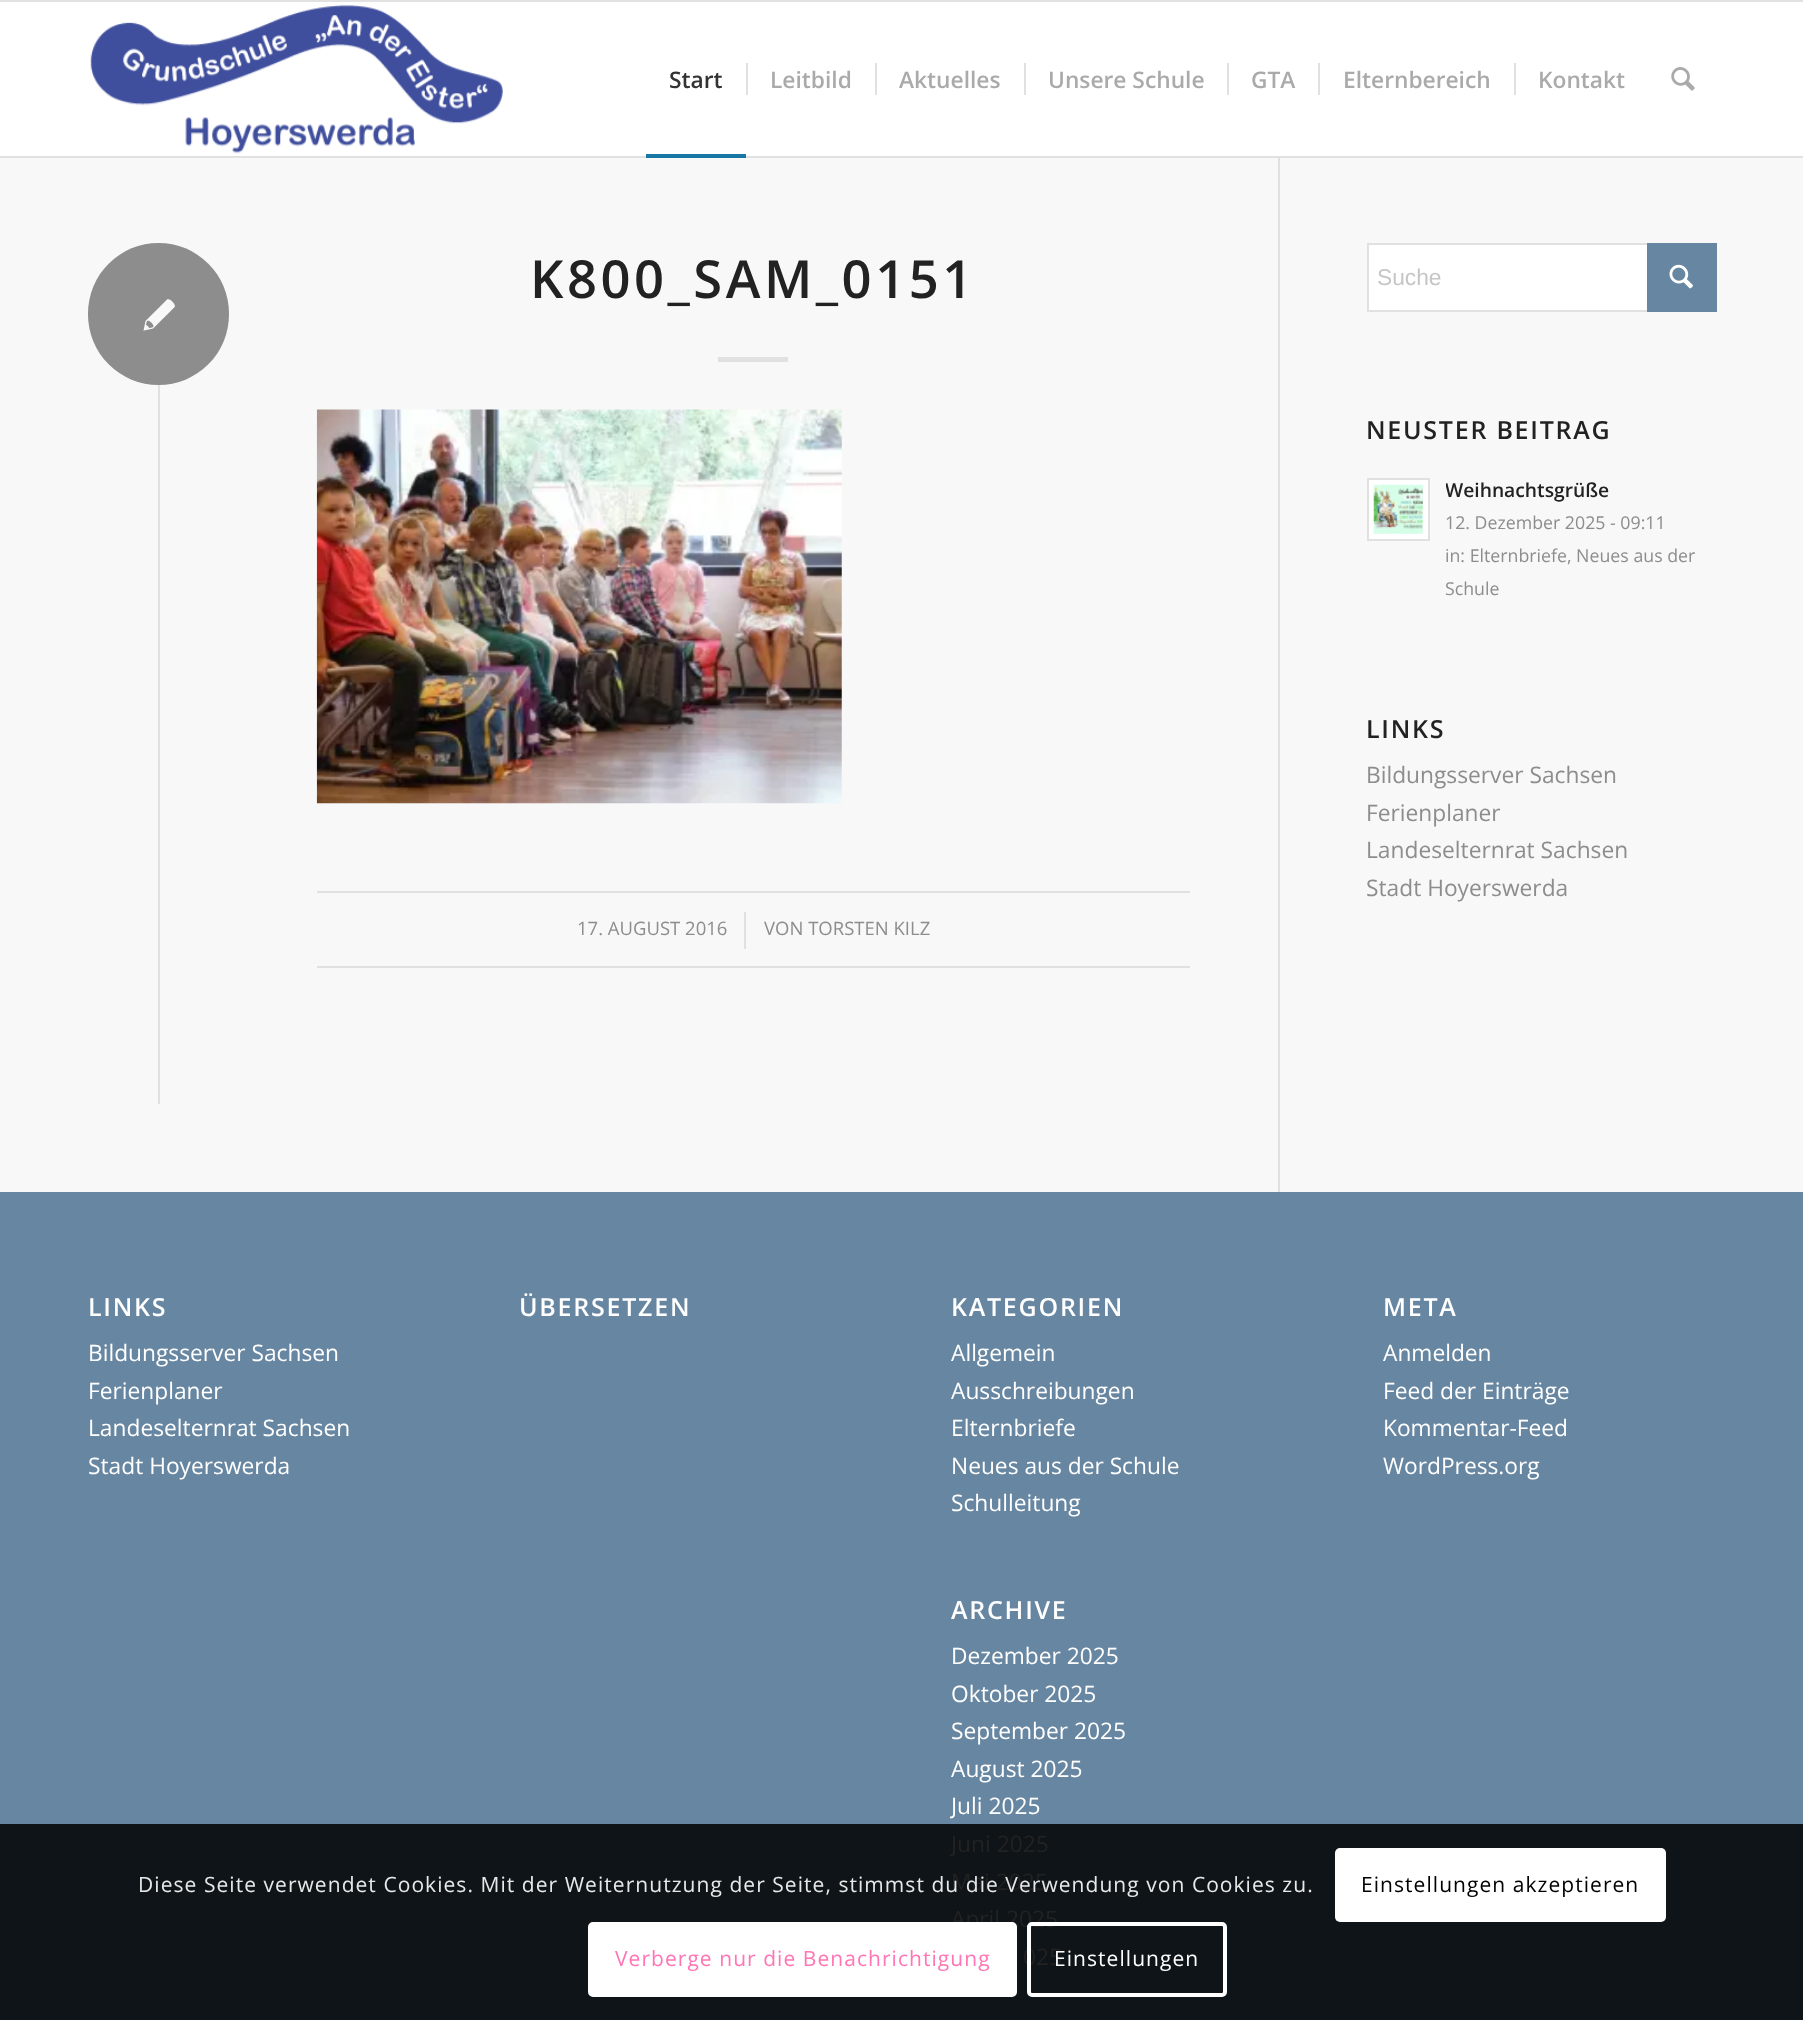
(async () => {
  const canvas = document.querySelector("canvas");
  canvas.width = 1803;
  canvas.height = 2020;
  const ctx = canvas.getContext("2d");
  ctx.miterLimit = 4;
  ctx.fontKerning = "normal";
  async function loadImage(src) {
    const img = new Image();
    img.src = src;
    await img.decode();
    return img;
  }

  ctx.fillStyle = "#ffffff";
  ctx.fillRect(0, 0, 1803, 2020);
  for (const [x, y, w, h, color] of [
    [0, 0, 1803, 2, "#e1e1e1"],
    [0, 158, 1803, 1034, "#f8f8f8"],
    [1278, 156, 2, 1036, "#e1e1e1"],
    [0, 156, 1803, 2, "#e1e1e1"],
  ]) {
    ctx.fillStyle = color;
    ctx.fillRect(x, y, w, h);
  }
  ctx.drawImage(await loadImage("img/1.png"), 90, 5, 413, 149);
  for (const [x, y, w, h, color] of [
    [646, 154, 100, 4, "#1778a5"],
    [746, 63, 2, 32, "#e1e1e1"],
    [875, 63, 2, 32, "#e1e1e1"],
    [1024, 63, 2, 32, "#e1e1e1"],
    [1227, 63, 2, 32, "#e1e1e1"],
    [1318, 63, 2, 32, "#e1e1e1"],
    [1514, 63, 2, 32, "#e1e1e1"],
  ]) {
    ctx.fillStyle = color;
    ctx.fillRect(x, y, w, h);
  }
  ctx.drawImage(await loadImage("img/2.png"), 1671, 67, 24, 24);
  ctx.fillRect(158, 243, 2, 861);
  ctx.fillStyle = "#8d8d8d";
  ctx.beginPath();
  ctx.roundRect(88, 243, 141, 142, 70.5);
  ctx.fill();
  ctx.drawImage(await loadImage("img/3.png"), 143, 299, 32, 32);
  ctx.fillStyle = "#e1e1e1";
  ctx.fillRect(718, 357, 70, 5);
  ctx.drawImage(await loadImage("img/4.png"), 316, 409, 526, 395);
  for (const [x, y, w, h, color] of [
    [317, 891, 873, 2, "#e1e1e1"],
    [317, 966, 873, 2, "#e1e1e1"],
    [744, 912, 2, 37, "#e1e1e1"],
    [1369, 245, 278, 65, "#ffffff"],
  ]) {
    ctx.fillStyle = color;
    ctx.fillRect(x, y, w, h);
  }
  ctx.strokeStyle = "#e1e1e1";
  ctx.lineWidth = 2;
  ctx.strokeRect(1368, 244, 348, 67);
  ctx.fillStyle = "#6786a1";
  ctx.fillRect(1647, 243, 70, 69);
  ctx.drawImage(await loadImage("img/5.png"), 1669, 264, 24, 25);
  ctx.fillStyle = "#ffffff";
  ctx.beginPath();
  ctx.rect(1368, 479, 61, 61);
  ctx.fill();
  ctx.stroke();
  ctx.drawImage(await loadImage("img/6.png"), 1373, 484, 50, 50);
  ctx.fillStyle = "#6786a1";
  ctx.fillRect(0, 1192, 1803, 632);
  ctx.fillStyle = "#0f1418";
  ctx.fillRect(0, 1824, 1803, 196);
  ctx.fillStyle = "#ffffff";
  ctx.beginPath();
  ctx.roundRect(1335, 1848, 331, 74, 5);
  ctx.fill();
  ctx.font = "600 22.75px Open Sans";
  ctx.fillStyle = "#333333";
  ctx.fillText("Start", 669, 88);
  ctx.fillStyle = "#aaaaaa";
  for (const [text, x, y] of [
    ["Leitbild", 770, 88],
    ["Aktuelles", 899, 88],
    ["Unsere Schule", 1048, 88],
    ["GTA", 1251, 88],
    ["Elternbereich", 1343, 88],
    ["Kontakt", 1538, 88],
  ]) {
    ctx.fillText(text, x, y);
  }
  ctx.letterSpacing = "3.5px";
  ctx.font = "600 52.5px Open Sans";
  ctx.fillStyle = "#222222";
  ctx.fillText("K800_SAM_0151", 530, 298);
  ctx.letterSpacing = "0px";
  ctx.font = "18.5px Open Sans";
  ctx.fillStyle = "#8d8d8d";
  ctx.fillText("17. AUGUST 2016", 577, 935);
  ctx.fillText("VON TORSTEN KILZ", 764, 935);
  ctx.font = "22.75px Liberation Sans";
  ctx.fillStyle = "#c6c6c6";
  ctx.fillText("Suche", 1377, 285);
  ctx.letterSpacing = "1.75px";
  ctx.font = "600 25px Open Sans";
  ctx.fillStyle = "#222222";
  ctx.fillText("NEUSTER BEITRAG", 1366, 439);
  ctx.save();
  ctx.beginPath();
  ctx.rect(1446, 474, 271, 132);
  ctx.clip();
  ctx.letterSpacing = "0px";
  ctx.font = "600 19.25px Open Sans";
  ctx.fillText("Weihnachtsgrüße", 1445, 497);
  ctx.restore();
  ctx.letterSpacing = "0px";
  ctx.font = "17.75px Open Sans";
  ctx.fillStyle = "#8d8d8d";
  for (const [text, x, y] of [
    ["12. Dezember 2025 - 09:11", 1445, 529],
    ["in: Elternbriefe, Neues aus der", 1445, 562],
    ["Schule", 1445, 595],
  ]) {
    ctx.fillText(text, x, y);
  }
  ctx.letterSpacing = "1.75px";
  ctx.font = "600 25px Open Sans";
  ctx.fillStyle = "#222222";
  ctx.fillText("LINKS", 1366, 738);
  ctx.letterSpacing = "0px";
  ctx.font = "22.75px Open Sans";
  ctx.fillStyle = "#8d8d8d";
  for (const [text, x, y] of [
    ["Bildungsserver Sachsen", 1366, 783],
    ["Ferienplaner", 1366, 821],
    ["Landeselternrat Sachsen", 1366, 858],
    ["Stadt Hoyerswerda", 1366, 896],
  ]) {
    ctx.fillText(text, x, y);
  }
  ctx.letterSpacing = "1.75px";
  ctx.font = "600 25px Open Sans";
  ctx.fillStyle = "#ffffff";
  ctx.fillText("LINKS", 88, 1316);
  ctx.letterSpacing = "0px";
  ctx.font = "22.75px Open Sans";
  for (const [text, x, y] of [
    ["Bildungsserver Sachsen", 88, 1361],
    ["Ferienplaner", 88, 1399],
    ["Landeselternrat Sachsen", 88, 1436],
    ["Stadt Hoyerswerda", 88, 1474],
  ]) {
    ctx.fillText(text, x, y);
  }
  ctx.letterSpacing = "1.75px";
  ctx.font = "600 25px Open Sans";
  ctx.fillText("ÜBERSETZEN", 519, 1316);
  ctx.fillText("KATEGORIEN", 951, 1316);
  ctx.letterSpacing = "0px";
  ctx.font = "22.75px Open Sans";
  for (const [text, x, y] of [
    ["Allgemein", 951, 1361],
    ["Ausschreibungen", 951, 1399],
    ["Elternbriefe", 951, 1436],
    ["Neues aus der Schule", 951, 1474],
    ["Schulleitung", 951, 1511],
  ]) {
    ctx.fillText(text, x, y);
  }
  ctx.letterSpacing = "1.75px";
  ctx.font = "600 25px Open Sans";
  ctx.fillText("ARCHIVE", 951, 1619);
  ctx.letterSpacing = "0px";
  ctx.font = "22.75px Open Sans";
  for (const [text, x, y] of [
    ["Dezember 2025", 951, 1664],
    ["Oktober 2025", 951, 1702],
    ["September 2025", 951, 1739],
    ["August 2025", 951, 1777],
  ]) {
    ctx.fillText(text, x, y);
  }
  ctx.save();
  ctx.beginPath();
  ctx.rect(950, 1575, 335, 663);
  ctx.clip();
  ctx.fillText("Juli 2025", 951, 1814);
  ctx.fillStyle = "#222222";
  ctx.fillText("Juni 2025", 951, 1852);
  ctx.restore();
  ctx.fillStyle = "#222222";
  for (const [text, x, y] of [
    ["Mai 2025", 951, 1890],
    ["April 2025", 951, 1927],
    ["025", 1023, 1965],
  ]) {
    ctx.fillText(text, x, y);
  }
  ctx.letterSpacing = "1.75px";
  ctx.font = "600 25px Open Sans";
  ctx.fillStyle = "#ffffff";
  ctx.fillText("META", 1383, 1316);
  ctx.letterSpacing = "0px";
  ctx.font = "22.75px Open Sans";
  for (const [text, x, y] of [
    ["Anmelden", 1383, 1361],
    ["Feed der Einträge", 1383, 1399],
    ["Kommentar-Feed", 1383, 1436],
    ["WordPress.org", 1383, 1474],
  ]) {
    ctx.fillText(text, x, y);
  }
  ctx.letterSpacing = "1.05px";
  ctx.font = "21px Open Sans";
  ctx.fillStyle = "#e7e8e8";
  ctx.fillText("Diese Seite verwendet Cookies. Mit der Weiternutzung der Seite, stimmst du die Verwendung von Cookies zu.", 138, 1892);
  ctx.fillStyle = "#000000";
  ctx.fillText("Einstellungen akzeptieren", 1361, 1892);
  ctx.fillStyle = "#ffffff";
  ctx.beginPath();
  ctx.roundRect(590, 1924, 425, 71, 3);
  ctx.fill();
  ctx.strokeStyle = "#ffffff";
  ctx.lineWidth = 4;
  ctx.stroke();
  ctx.fillStyle = "#ff75b5";
  ctx.fillText("Verberge nur die Benachrichtigung", 615, 1966);
  ctx.beginPath();
  ctx.roundRect(1029, 1924, 196, 71, 3);
  ctx.stroke();
  ctx.fillStyle = "#ffffff";
  ctx.fillText("Einstellungen", 1054, 1966);
})();
